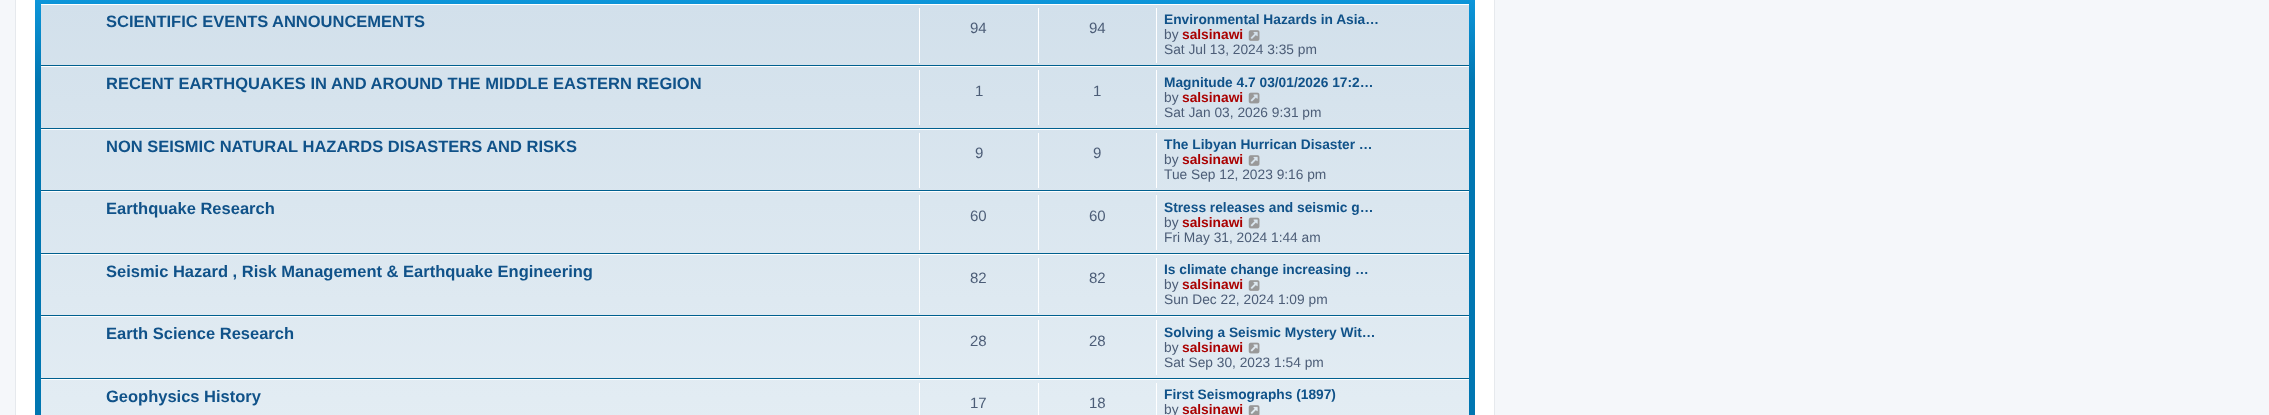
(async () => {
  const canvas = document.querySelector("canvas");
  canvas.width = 2269;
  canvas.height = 415;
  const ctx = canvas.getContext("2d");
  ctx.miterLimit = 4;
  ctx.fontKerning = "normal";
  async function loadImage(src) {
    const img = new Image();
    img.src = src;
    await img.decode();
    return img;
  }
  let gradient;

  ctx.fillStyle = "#f5f7fa";
  ctx.fillRect(0, 0, 2269, 415);
  ctx.fillStyle = "#ffffff";
  ctx.beginPath();
  ctx.rect(15.5, -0.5, 1479, 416);
  ctx.fill();
  ctx.strokeStyle = "#e6e9ed";
  ctx.stroke();
  gradient = ctx.createLinearGradient(755, -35, 755, 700);
  gradient.addColorStop(0, "#6aceff");
  gradient.addColorStop(0, "#12a3eb");
  gradient.addColorStop(0.16, "#0076b1");
  gradient.addColorStop(1, "#0076b1");
  ctx.fillStyle = gradient;
  ctx.fillRect(35, 0, 1440, 415);
  gradient = ctx.createLinearGradient(755, 3.7, 755, 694);
  gradient.addColorStop(0, "#d2e0eb");
  gradient.addColorStop(1, "#eef5f9");
  ctx.fillStyle = gradient;
  ctx.fillRect(41, 5, 1428, 410);
  for (const [x, y, w, h, color] of [
    [41, 4, 1428, 1, "#ffffff"],
    [41, 65, 1428, 1, "#00608f"],
    [919, 8, 1, 55, "#ffffff"],
    [1038, 8, 1, 55, "#ffffff"],
    [1156, 8, 1, 55, "#ffffff"],
  ]) {
    ctx.fillStyle = color;
    ctx.fillRect(x, y, w, h);
  }
  ctx.drawImage(await loadImage("img/1.png"), 1248, 30, 12, 11);
  for (const [x, y, w, h, color] of [
    [41, 66, 1428, 1, "#ffffff"],
    [41, 128, 1428, 1, "#00608f"],
    [919, 70, 1, 55, "#ffffff"],
    [1038, 70, 1, 55, "#ffffff"],
    [1156, 70, 1, 55, "#ffffff"],
  ]) {
    ctx.fillStyle = color;
    ctx.fillRect(x, y, w, h);
  }
  ctx.drawImage(await loadImage("img/2.png"), 1248, 92, 12, 12);
  for (const [x, y, w, h, color] of [
    [41, 129, 1428, 1, "#ffffff"],
    [41, 190, 1428, 1, "#00608f"],
    [919, 133, 1, 55, "#ffffff"],
    [1038, 133, 1, 55, "#ffffff"],
    [1156, 133, 1, 55, "#ffffff"],
  ]) {
    ctx.fillStyle = color;
    ctx.fillRect(x, y, w, h);
  }
  ctx.drawImage(await loadImage("img/3.png"), 1248, 155, 12, 11);
  for (const [x, y, w, h, color] of [
    [41, 191, 1428, 1, "#ffffff"],
    [41, 253, 1428, 1, "#00608f"],
    [919, 195, 1, 55, "#ffffff"],
    [1038, 195, 1, 55, "#ffffff"],
    [1156, 195, 1, 55, "#ffffff"],
  ]) {
    ctx.fillStyle = color;
    ctx.fillRect(x, y, w, h);
  }
  ctx.drawImage(await loadImage("img/4.png"), 1248, 217, 12, 12);
  for (const [x, y, w, h, color] of [
    [41, 254, 1428, 1, "#ffffff"],
    [41, 315, 1428, 1, "#00608f"],
    [919, 258, 1, 55, "#ffffff"],
    [1038, 258, 1, 55, "#ffffff"],
    [1156, 258, 1, 55, "#ffffff"],
  ]) {
    ctx.fillStyle = color;
    ctx.fillRect(x, y, w, h);
  }
  ctx.drawImage(await loadImage("img/5.png"), 1248, 280, 12, 11);
  for (const [x, y, w, h, color] of [
    [41, 316, 1428, 1, "#ffffff"],
    [41, 378, 1428, 1, "#00608f"],
    [919, 320, 1, 55, "#ffffff"],
    [1038, 320, 1, 55, "#ffffff"],
    [1156, 320, 1, 55, "#ffffff"],
  ]) {
    ctx.fillStyle = color;
    ctx.fillRect(x, y, w, h);
  }
  ctx.drawImage(await loadImage("img/6.png"), 1248, 342, 12, 12);
  for (const [x, y, w, h, color] of [
    [41, 379, 1428, 1, "#ffffff"],
    [919, 383, 1, 32, "#ffffff"],
    [1038, 383, 1, 32, "#ffffff"],
    [1156, 383, 1, 32, "#ffffff"],
  ]) {
    ctx.fillStyle = color;
    ctx.fillRect(x, y, w, h);
  }
  ctx.drawImage(await loadImage("img/7.png"), 1248, 405, 12, 10);
  ctx.font = "bold 16.5px Liberation Sans";
  ctx.fillStyle = "#105289";
  ctx.fillText("SCIENTIFIC EVENTS", 106, 27);
  ctx.fillText("ANNOUNCEMENTS", 272, 27);
  ctx.font = "15px Liberation Sans";
  ctx.fillStyle = "#4c5d77";
  ctx.fillText("94", 970, 33);
  ctx.fillText("94", 1089, 33);
  ctx.font = "bold 13.75px Liberation Sans";
  ctx.fillStyle = "#105289";
  ctx.fillText("Environmental Hazards in Asia…", 1164, 24);
  ctx.font = "13.75px Liberation Sans";
  ctx.fillStyle = "#4c5d77";
  ctx.fillText("by", 1164, 39);
  ctx.font = "bold 13.75px Liberation Sans";
  ctx.fillStyle = "#aa0000";
  ctx.fillText("salsinawi", 1182, 39);
  ctx.font = "13.75px Liberation Sans";
  ctx.fillStyle = "#4c5d77";
  ctx.fillText("Sat Jul 13, 2024 3:35 pm", 1164, 54);
  ctx.font = "bold 16.5px Liberation Sans";
  ctx.fillStyle = "#105289";
  ctx.fillText("RECENT EARTHQUAKES IN AND AROUND THE MIDDLE EASTERN REGION", 106, 89);
  ctx.font = "15px Liberation Sans";
  ctx.fillStyle = "#4c5d77";
  ctx.fillText("1", 975, 96);
  ctx.fillText("1", 1093, 96);
  ctx.font = "bold 13.75px Liberation Sans";
  ctx.fillStyle = "#105289";
  ctx.fillText("Magnitude 4.7 03/01/2026 17:2…", 1164, 87);
  ctx.font = "13.75px Liberation Sans";
  ctx.fillStyle = "#4c5d77";
  ctx.fillText("by", 1164, 102);
  ctx.font = "bold 13.75px Liberation Sans";
  ctx.fillStyle = "#aa0000";
  ctx.fillText("salsinawi", 1182, 102);
  ctx.font = "13.75px Liberation Sans";
  ctx.fillStyle = "#4c5d77";
  ctx.fillText("Sat Jan 03, 2026 9:31 pm", 1164, 117);
  ctx.font = "bold 16.5px Liberation Sans";
  ctx.fillStyle = "#105289";
  ctx.fillText("NON SEISMIC NATURAL HAZARDS DISASTERS AND RISKS", 106, 152);
  ctx.font = "15px Liberation Sans";
  ctx.fillStyle = "#4c5d77";
  ctx.fillText("9", 975, 158);
  ctx.fillText("9", 1093, 158);
  ctx.font = "bold 13.75px Liberation Sans";
  ctx.fillStyle = "#105289";
  ctx.fillText("The Libyan Hurrican Disaster …", 1164, 149);
  ctx.font = "13.75px Liberation Sans";
  ctx.fillStyle = "#4c5d77";
  ctx.fillText("by", 1164, 164);
  ctx.font = "bold 13.75px Liberation Sans";
  ctx.fillStyle = "#aa0000";
  ctx.fillText("salsinawi", 1182, 164);
  ctx.font = "13.75px Liberation Sans";
  ctx.fillStyle = "#4c5d77";
  ctx.fillText("Tue Sep 12, 2023 9:16 pm", 1164, 179);
  ctx.font = "bold 16.5px Liberation Sans";
  ctx.fillStyle = "#105289";
  ctx.fillText("Earthquake Research", 106, 214);
  ctx.font = "15px Liberation Sans";
  ctx.fillStyle = "#4c5d77";
  ctx.fillText("60", 970, 221);
  ctx.fillText("60", 1089, 221);
  ctx.font = "bold 13.75px Liberation Sans";
  ctx.fillStyle = "#105289";
  ctx.fillText("Stress releases and seismic g…", 1164, 212);
  ctx.font = "13.75px Liberation Sans";
  ctx.fillStyle = "#4c5d77";
  ctx.fillText("by", 1164, 227);
  ctx.font = "bold 13.75px Liberation Sans";
  ctx.fillStyle = "#aa0000";
  ctx.fillText("salsinawi", 1182, 227);
  ctx.font = "13.75px Liberation Sans";
  ctx.fillStyle = "#4c5d77";
  ctx.fillText("Fri May 31, 2024 1:44 am", 1164, 242);
  ctx.font = "bold 16.5px Liberation Sans";
  ctx.fillStyle = "#105289";
  ctx.fillText("Seismic Hazard , Risk Management & Earthquake Engineering", 106, 277);
  ctx.font = "15px Liberation Sans";
  ctx.fillStyle = "#4c5d77";
  ctx.fillText("82", 970, 283);
  ctx.fillText("82", 1089, 283);
  ctx.font = "bold 13.75px Liberation Sans";
  ctx.fillStyle = "#105289";
  ctx.fillText("Is climate change increasing …", 1164, 274);
  ctx.font = "13.75px Liberation Sans";
  ctx.fillStyle = "#4c5d77";
  ctx.fillText("by", 1164, 289);
  ctx.font = "bold 13.75px Liberation Sans";
  ctx.fillStyle = "#aa0000";
  ctx.fillText("salsinawi", 1182, 289);
  ctx.font = "13.75px Liberation Sans";
  ctx.fillStyle = "#4c5d77";
  ctx.fillText("Sun Dec 22, 2024 1:09 pm", 1164, 304);
  ctx.font = "bold 16.5px Liberation Sans";
  ctx.fillStyle = "#105289";
  ctx.fillText("Earth Science Research", 106, 339);
  ctx.font = "15px Liberation Sans";
  ctx.fillStyle = "#4c5d77";
  ctx.fillText("28", 970, 346);
  ctx.fillText("28", 1089, 346);
  ctx.font = "bold 13.75px Liberation Sans";
  ctx.fillStyle = "#105289";
  ctx.fillText("Solving a Seismic Mystery Wit…", 1164, 337);
  ctx.font = "13.75px Liberation Sans";
  ctx.fillStyle = "#4c5d77";
  ctx.fillText("by", 1164, 352);
  ctx.font = "bold 13.75px Liberation Sans";
  ctx.fillStyle = "#aa0000";
  ctx.fillText("salsinawi", 1182, 352);
  ctx.font = "13.75px Liberation Sans";
  ctx.fillStyle = "#4c5d77";
  ctx.fillText("Sat Sep 30, 2023 1:54 pm", 1164, 367);
  ctx.font = "bold 16.5px Liberation Sans";
  ctx.fillStyle = "#105289";
  ctx.fillText("Geophysics History", 106, 402);
  ctx.font = "15px Liberation Sans";
  ctx.fillStyle = "#4c5d77";
  ctx.fillText("17", 970, 408);
  ctx.fillText("18", 1089, 408);
  ctx.font = "bold 13.75px Liberation Sans";
  ctx.fillStyle = "#105289";
  ctx.fillText("First Seismographs (1897)", 1164, 399);
  ctx.font = "13.75px Liberation Sans";
  ctx.fillStyle = "#4c5d77";
  ctx.fillText("by", 1164, 414);
  ctx.font = "bold 13.75px Liberation Sans";
  ctx.fillStyle = "#aa0000";
  ctx.fillText("salsinawi", 1182, 414);
})();
